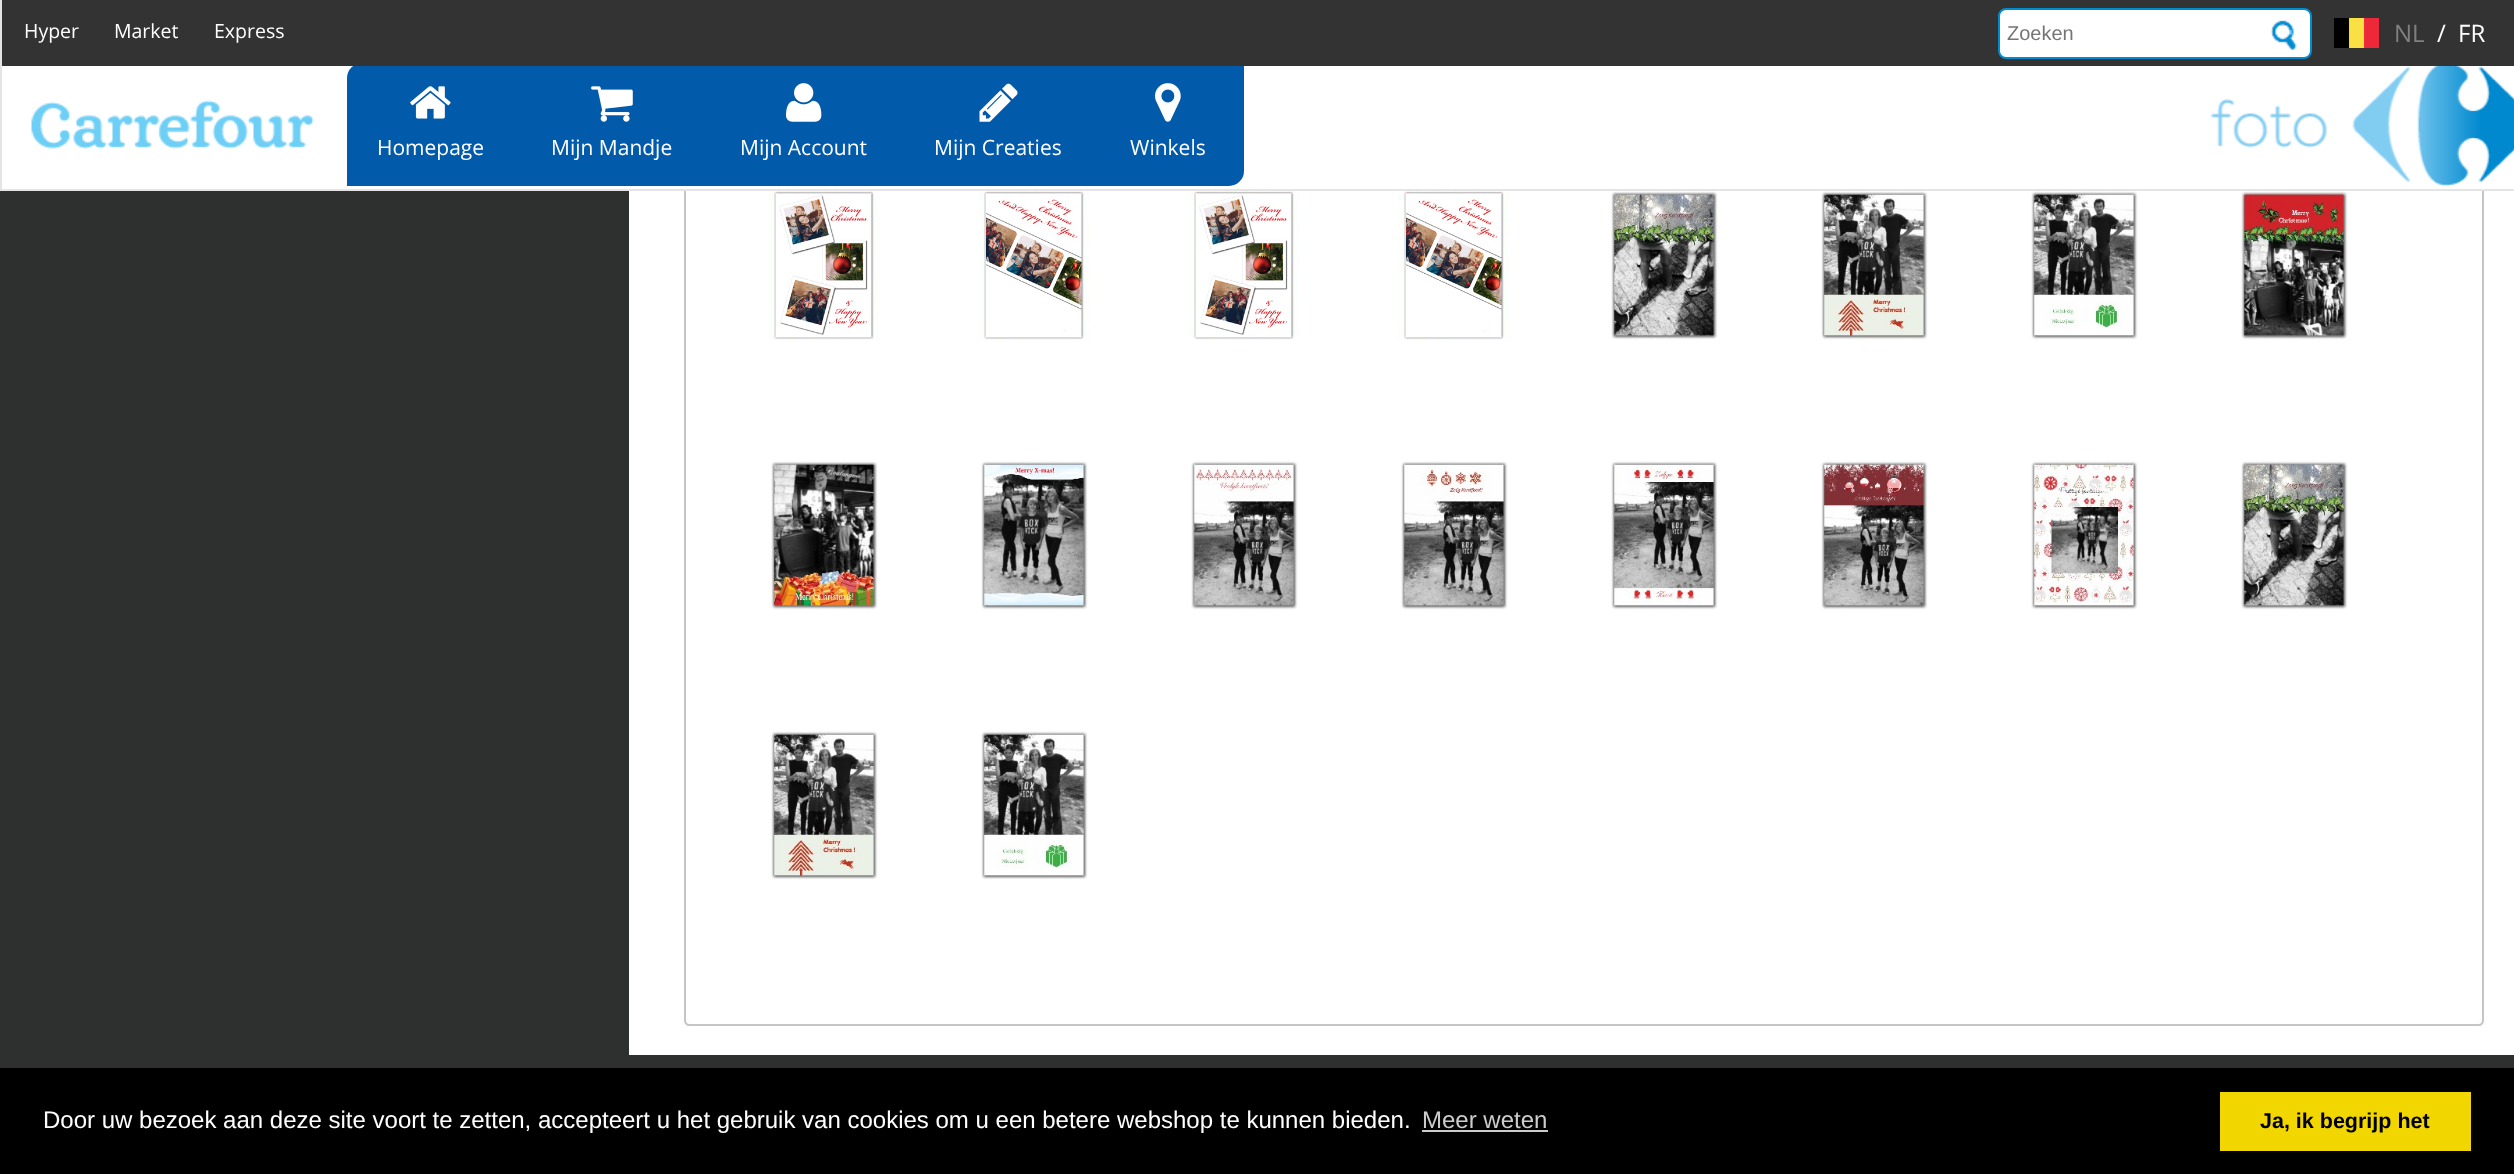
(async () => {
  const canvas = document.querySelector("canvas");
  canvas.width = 2514;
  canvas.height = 1174;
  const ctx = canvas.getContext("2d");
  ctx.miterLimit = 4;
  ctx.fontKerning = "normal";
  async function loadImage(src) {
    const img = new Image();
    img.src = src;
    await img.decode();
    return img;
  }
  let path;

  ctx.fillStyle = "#2e3030";
  ctx.fillRect(0, 0, 2514, 1174);
  ctx.fillStyle = "#ffffff";
  ctx.fillRect(629, 191, 1885, 864);
  path = new Path2D("M685-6H2483V1021C2483 1023 2481 1025 2479 1025H689C687 1025 685 1023 685 1021Z");
  ctx.strokeStyle = "#c5c5c5";
  ctx.lineWidth = 2;
  ctx.stroke(path);
  ctx.drawImage(await loadImage("img/1.png"), 768, 191, 112, 149);
  ctx.drawImage(await loadImage("img/2.png"), 978, 191, 112, 149);
  ctx.drawImage(await loadImage("img/1.png"), 1188, 191, 112, 149);
  ctx.drawImage(await loadImage("img/2.png"), 1398, 191, 112, 149);
  ctx.drawImage(await loadImage("img/3.png"), 1611, 191, 107, 149);
  ctx.drawImage(await loadImage("img/4.png"), 1821, 191, 107, 149);
  ctx.drawImage(await loadImage("img/5.png"), 2031, 191, 107, 149);
  ctx.drawImage(await loadImage("img/6.png"), 2241, 191, 107, 149);
  ctx.drawImage(await loadImage("img/7.png"), 771, 461, 107, 149);
  ctx.drawImage(await loadImage("img/8.png"), 981, 460, 107, 150);
  ctx.drawImage(await loadImage("img/9.png"), 1191, 460, 107, 150);
  ctx.drawImage(await loadImage("img/10.png"), 1401, 460, 107, 150);
  ctx.drawImage(await loadImage("img/11.png"), 1611, 460, 107, 150);
  ctx.drawImage(await loadImage("img/12.png"), 1821, 460, 107, 150);
  ctx.drawImage(await loadImage("img/13.png"), 2031, 460, 107, 150);
  ctx.drawImage(await loadImage("img/14.png"), 2241, 460, 107, 150);
  ctx.drawImage(await loadImage("img/15.png"), 771, 730, 107, 150);
  ctx.drawImage(await loadImage("img/16.png"), 981, 730, 107, 150);
  ctx.fillRect(2, 66, 2512, 123);
  ctx.strokeStyle = "#e4e4e4";
  ctx.strokeRect(1, 1, 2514, 189);
  ctx.fillStyle = "#015aaa";
  ctx.beginPath();
  ctx.roundRect(347, 63, 174, 123, [15, 0, 0, 0]);
  ctx.fill();
  ctx.beginPath();
  ctx.roundRect(1100, 63, 144, 123, [0, 0, 15, 0]);
  ctx.fill();
  ctx.fillStyle = "#333333";
  ctx.fillRect(2, 0, 2512, 66);
  ctx.fillStyle = "#ffffff";
  ctx.beginPath();
  ctx.roundRect(1999, 9, 312, 49, 7);
  ctx.fill();
  ctx.strokeStyle = "#018cd0";
  ctx.stroke();
  ctx.drawImage(await loadImage("img/17.png"), 2270, 20, 40, 30);
  ctx.drawImage(await loadImage("img/18.png"), 2334, 18, 45, 30);
  ctx.drawImage(await loadImage("img/19.png"), 2210, 66, 304, 120);
  ctx.drawImage(await loadImage("img/20.png"), 31, 100, 283, 49);
  ctx.drawImage(await loadImage("img/21.png"), 410, 86, 41, 33);
  ctx.fillStyle = "#015aaa";
  ctx.fillRect(521, 66, 579, 120);
  ctx.drawImage(await loadImage("img/22.png"), 591, 86, 42, 36);
  ctx.drawImage(await loadImage("img/23.png"), 786, 83, 36, 39);
  ctx.drawImage(await loadImage("img/24.png"), 979, 83, 39, 39);
  ctx.drawImage(await loadImage("img/25.png"), 1155, 83, 26, 39);
  for (const [x, y, w, h, color] of [
    [0, 1068, 2514, 106, "#000000"],
    [1422, 1130, 126, 2, "#cccccc"],
    [2220, 1092, 251, 59, "#f1d600"],
  ]) {
    ctx.fillStyle = color;
    ctx.fillRect(x, y, w, h);
  }
  ctx.font = "19.5px Open Sans";
  ctx.fillStyle = "#ffffff";
  for (const [text, x, y] of [
    ["Hyper", 24, 38],
    ["Market", 114, 38],
    ["Express", 214, 38],
  ]) {
    ctx.fillText(text, x, y);
  }
  ctx.font = "20px Liberation Sans";
  ctx.fillStyle = "#757575";
  ctx.fillText("Zoeken", 2007, 40);
  ctx.font = "24px Open Sans";
  ctx.fillStyle = "#808080";
  ctx.fillText("NL", 2394, 42);
  ctx.fillStyle = "#ffffff";
  ctx.fillText("/", 2437, 42);
  ctx.fillText("FR", 2458, 42);
  ctx.font = "21px Open Sans";
  for (const [text, x, y] of [
    ["Homepage", 377, 155],
    ["Mijn Mandje", 551, 155],
    ["Mijn Account", 740, 155],
    ["Mijn Creaties", 934, 155],
    ["Winkels", 1130, 155],
  ]) {
    ctx.fillText(text, x, y);
  }
  ctx.font = "24px Liberation Sans";
  ctx.fillText("Door uw bezoek aan deze site voort te zetten, accepteert u het gebruik van cookies om u een betere webshop te kunnen bieden.", 43, 1128);
  ctx.fillStyle = "#cccccc";
  ctx.fillText("Meer weten", 1422, 1128);
  ctx.font = "bold 21.5px Liberation Sans";
  ctx.fillStyle = "#000000";
  ctx.fillText("Ja, ik begrijp het", 2260, 1128);
})();
